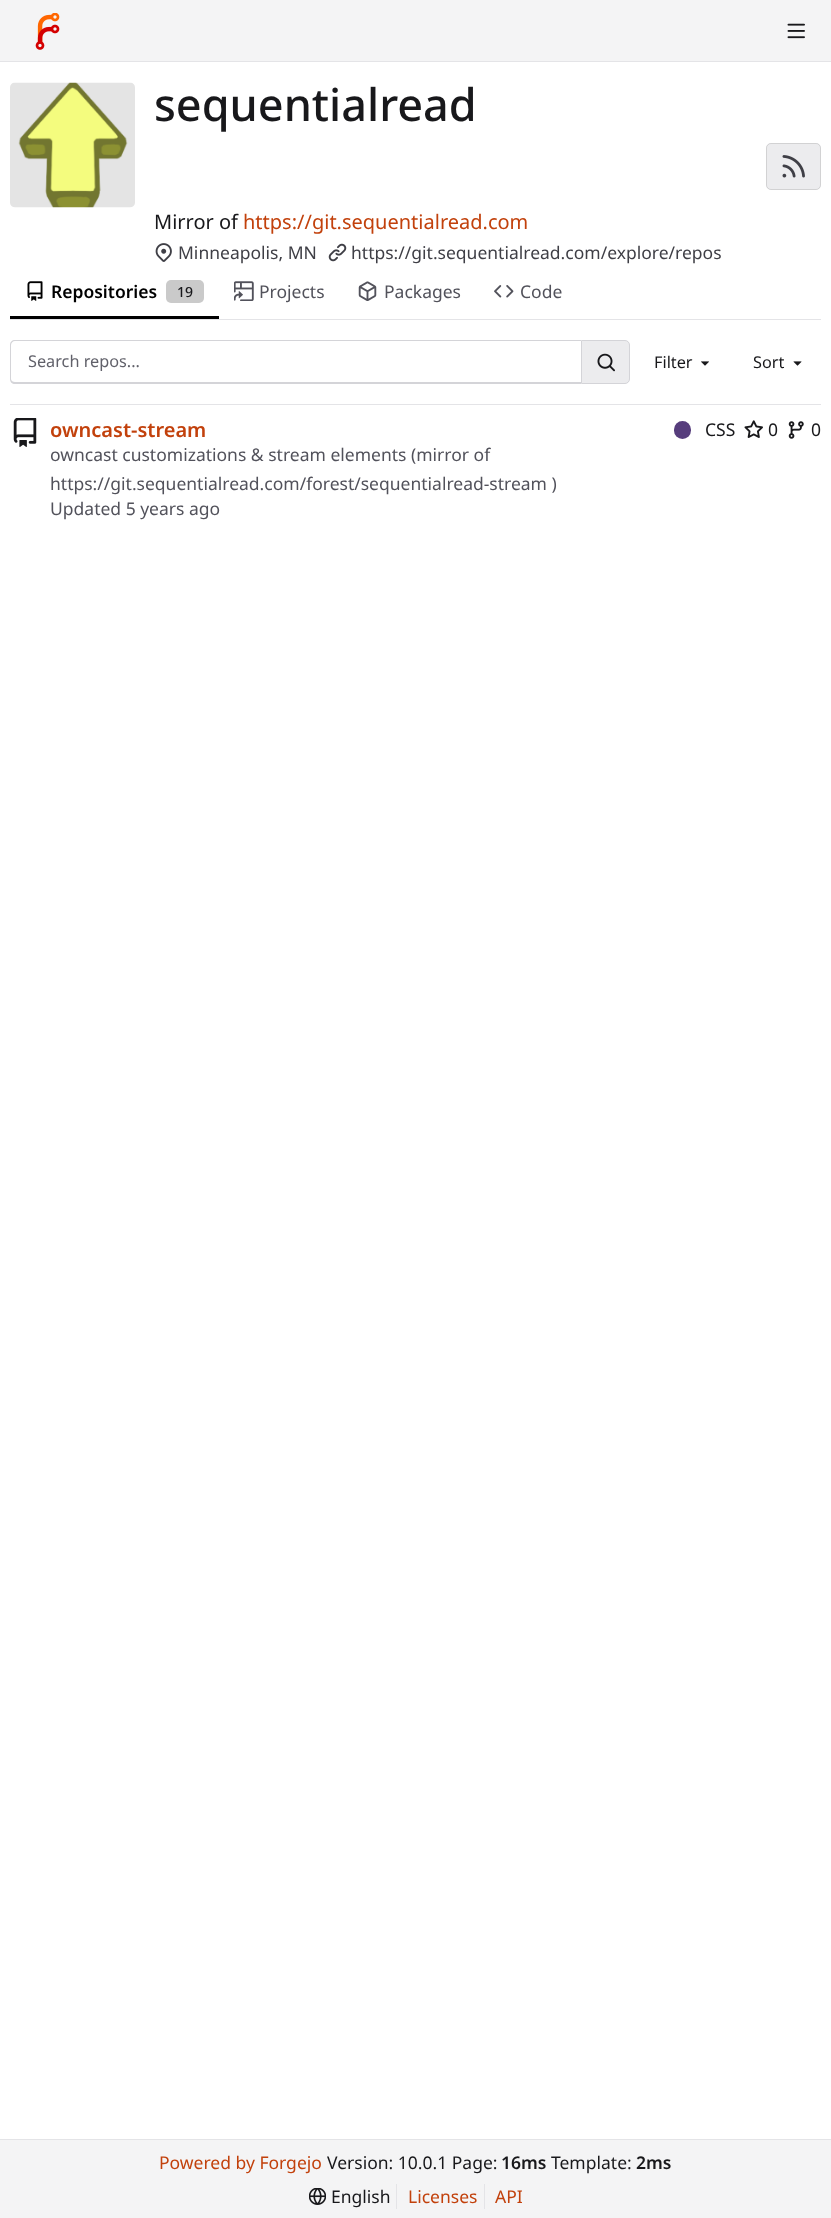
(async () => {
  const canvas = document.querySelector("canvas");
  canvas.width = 831;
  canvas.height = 2218;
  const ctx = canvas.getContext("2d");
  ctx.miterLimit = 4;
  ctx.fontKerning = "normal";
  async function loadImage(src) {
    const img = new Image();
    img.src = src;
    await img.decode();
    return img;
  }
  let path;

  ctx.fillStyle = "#ffffff";
  ctx.fillRect(0, 0, 831, 2218);
  ctx.fillStyle = "#f4f4f5";
  ctx.fillRect(0, 0, 831, 61);
  ctx.fillStyle = "#e4e4e7";
  ctx.fillRect(0, 61, 831, 1);
  ctx.drawImage(await loadImage("img/1.png"), 35, 13, 25, 37);
  ctx.drawImage(await loadImage("img/2.png"), 787, 23, 18, 16);
  ctx.drawImage(await loadImage("img/3.png"), 10, 82, 125, 126);
  ctx.fillStyle = "#ececee";
  ctx.beginPath();
  ctx.roundRect(766, 143, 55, 47, 5);
  ctx.fill();
  ctx.beginPath();
  ctx.roundRect(766.5, 143.5, 54, 46, 4.5);
  ctx.strokeStyle = "rgba(0, 0, 0, 0.11)";
  ctx.stroke();
  ctx.drawImage(await loadImage("img/4.png"), 782, 155, 23, 23);
  ctx.drawImage(await loadImage("img/5.png"), 155, 243, 17, 19);
  ctx.drawImage(await loadImage("img/6.png"), 328, 243, 19, 19);
  ctx.fillStyle = "#e4e4e7";
  ctx.fillRect(10, 319, 811, 1);
  ctx.fillStyle = "#000000";
  ctx.fillRect(10, 316, 209, 3);
  ctx.drawImage(await loadImage("img/7.png"), 27, 281, 16, 20);
  ctx.fillStyle = "#cacaca";
  ctx.beginPath();
  ctx.roundRect(166, 280, 38, 23, 5);
  ctx.fill();
  ctx.drawImage(await loadImage("img/8.png"), 234, 281, 20, 20);
  ctx.drawImage(await loadImage("img/9.png"), 358, 281, 19, 20);
  ctx.drawImage(await loadImage("img/10.png"), 494, 285, 20, 13);
  ctx.fillStyle = "#d4d4d8";
  path = new Path2D("M15 340H581V384H15C12 384 10 382 10 379V345C10 342 12 340 15 340ZM15 341H581V382H15C13 382 11 381 11 379V345C11 343 13 341 15 341Z");
  ctx.fill(path, "evenodd");
  ctx.fillStyle = "#ececee";
  ctx.beginPath();
  ctx.roundRect(581.5, 340.5, 48, 43, [0, 4.5, 4.5, 0]);
  ctx.fill();
  ctx.strokeStyle = "#d4d4d8";
  ctx.stroke();
  ctx.drawImage(await loadImage("img/11.png"), 597, 353, 18, 19);
  ctx.drawImage(await loadImage("img/12.png"), 701, 361, 8, 5);
  ctx.drawImage(await loadImage("img/13.png"), 793, 361, 9, 5);
  ctx.fillStyle = "#e4e4e7";
  ctx.fillRect(10, 404, 811, 1);
  ctx.drawImage(await loadImage("img/14.png"), 13, 418, 24, 29);
  ctx.fillStyle = "#563d7c";
  ctx.beginPath();
  ctx.roundRect(674, 421, 17, 18, 8.5);
  ctx.fill();
  ctx.drawImage(await loadImage("img/15.png"), 744, 420, 19, 18);
  ctx.drawImage(await loadImage("img/16.png"), 788, 421, 16, 18);
  ctx.fillStyle = "#f4f4f5";
  ctx.fillRect(0, 2140, 831, 78);
  ctx.fillStyle = "#e4e4e7";
  ctx.fillRect(0, 2139, 831, 1);
  ctx.drawImage(await loadImage("img/17.png"), 309, 2188, 17, 17);
  ctx.fillRect(396, 2184, 1, 25);
  ctx.fillRect(484, 2184, 1, 25);
  ctx.font = "500 45px Noto Sans";
  ctx.fillStyle = "#18181b";
  ctx.fillText("sequentialread", 154, 121);
  ctx.font = "20px Noto Sans";
  ctx.fillText("Mirror of", 154, 229);
  ctx.fillStyle = "#c2410c";
  ctx.fillText("https://git.sequentialread.com", 243, 229);
  ctx.font = "17.5px Noto Sans";
  ctx.fillStyle = "#3f3f46";
  ctx.fillText("Minneapolis, MN", 178, 259);
  ctx.fillText("https://git.sequentialread.com/explore/repos", 351, 259);
  ctx.font = "600 17.5px Noto Sans";
  ctx.fillStyle = "#000000";
  ctx.fillText("Repositories", 51, 298);
  ctx.font = "500 14px Noto Sans";
  ctx.fillStyle = "#18181b";
  ctx.fillText("19", 177, 297);
  ctx.font = "17.5px Noto Sans";
  ctx.fillStyle = "#52525b";
  for (const [text, x, y] of [
    ["Projects", 259, 298],
    ["Packages", 384, 298],
    ["Code", 520, 298],
  ]) {
    ctx.fillText(text, x, y);
  }
  ctx.font = "16.25px Noto Sans";
  ctx.fillStyle = "#61616a";
  ctx.fillText("Search repos...", 28, 367);
  ctx.fillStyle = "#18181b";
  ctx.fillText("Filter", 654, 368);
  ctx.fillText("Sort", 753, 368);
  ctx.font = "600 20px Noto Sans";
  ctx.fillStyle = "#c2410c";
  ctx.fillText("owncast-stream", 50, 437);
  ctx.font = "17.5px Noto Sans";
  ctx.fillStyle = "#18181b";
  for (const [text, x, y] of [
    ["CSS", 705, 436],
    ["0", 768, 436],
    ["0", 811, 436],
  ]) {
    ctx.fillText(text, x, y);
  }
  ctx.fillStyle = "#52525b";
  for (const [text, x, y] of [
    ["owncast customizations & stream elements (mirror of", 50, 461],
    ["https://git.sequentialread.com/forest/sequentialread-stream )", 50, 490],
    ["Updated 5 years ago", 50, 515],
  ]) {
    ctx.fillText(text, x, y);
  }
  ctx.fillStyle = "#c2410c";
  ctx.fillText("Powered by Forgejo", 159, 2169);
  ctx.fillStyle = "#18181b";
  ctx.fillText("Version: 10.0.1 Page:", 327, 2169);
  ctx.font = "600 17.5px Noto Sans";
  ctx.fillText("16ms", 501, 2169);
  ctx.font = "17.5px Noto Sans";
  ctx.fillText("Template:", 551, 2169);
  ctx.font = "600 17.5px Noto Sans";
  ctx.fillText("2ms", 636, 2169);
  ctx.font = "17.5px Noto Sans";
  ctx.fillText("English", 331, 2203);
  ctx.fillStyle = "#c2410c";
  ctx.fillText("Licenses", 408, 2203);
  ctx.fillText("API", 495, 2203);
})();
